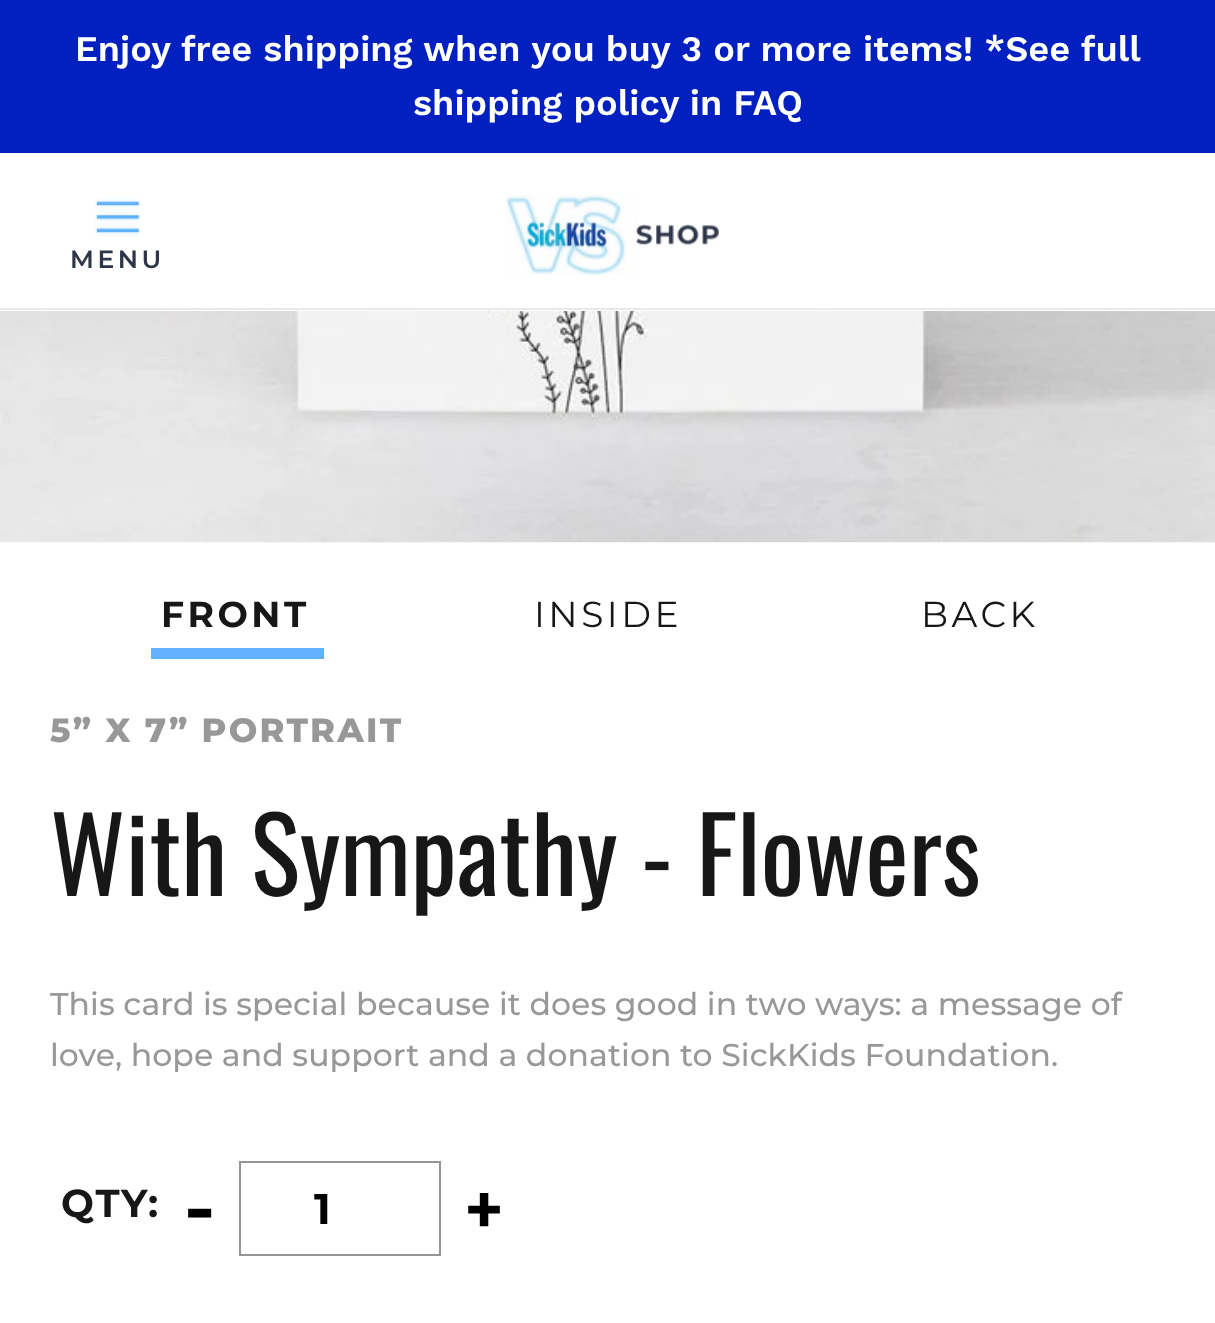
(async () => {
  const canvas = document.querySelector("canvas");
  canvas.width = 1215;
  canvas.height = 1323;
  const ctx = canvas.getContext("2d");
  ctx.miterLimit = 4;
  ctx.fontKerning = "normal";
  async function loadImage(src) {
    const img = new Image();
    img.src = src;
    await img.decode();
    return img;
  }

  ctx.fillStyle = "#ffffff";
  ctx.fillRect(0, 0, 1215, 1323);
  ctx.fillStyle = "#e8e9eb";
  ctx.fillRect(0, 308, 1215, 2);
  ctx.fillStyle = "#021fc0";
  ctx.fillRect(0, 0, 1215, 153);
  ctx.drawImage(await loadImage("img/1.png"), 94, 197, 47, 40);
  ctx.drawImage(await loadImage("img/2.png"), 505, 194, 214, 82);
  ctx.drawImage(await loadImage("img/3.png"), 0, 311, 1215, 232);
  ctx.fillStyle = "#61b1ff";
  ctx.fillRect(151, 648, 173, 11);
  ctx.strokeStyle = "#949494";
  ctx.lineWidth = 2;
  ctx.strokeRect(240, 1162, 200, 93);
  ctx.font = "600 36px Work Sans";
  ctx.fillStyle = "#ffffff";
  ctx.fillText("Enjoy free shipping when you buy 3 or more items! *See full", 75, 61);
  ctx.fillText("shipping policy in FAQ", 413, 115);
  ctx.letterSpacing = "3.5px";
  ctx.font = "600 25px Montserrat";
  ctx.fillStyle = "#2e3548";
  ctx.fillText("MENU", 70, 268);
  ctx.font = "bold 36px Montserrat";
  ctx.fillStyle = "#171717";
  ctx.fillText("FRONT", 161, 627);
  ctx.font = "100 36px Montserrat";
  ctx.fillText("INSIDE", 534, 627);
  ctx.fillText("BACK", 921, 627);
  ctx.letterSpacing = "2.25px";
  ctx.font = "800 33.75px Montserrat";
  ctx.fillStyle = "#989898";
  ctx.fillText("5” X 7” PORTRAIT", 50, 742);
  ctx.letterSpacing = "0px";
  ctx.font = "103.5px Oswald";
  ctx.fillStyle = "#171717";
  ctx.fillText("With Sympathy - Flowers", 50, 896);
  ctx.letterSpacing = "0.07px";
  ctx.font = "500 31.5px Montserrat";
  ctx.fillStyle = "#989898";
  ctx.fillText("This card is special because it does good in two ways: a message of", 50, 1015);
  ctx.fillText("love, hope and support and a donation to SickKids Foundation.", 50, 1066);
  ctx.letterSpacing = "2px";
  ctx.font = "bold 39px Montserrat";
  ctx.fillStyle = "#171717";
  ctx.fillText("QTY:", 61, 1217);
  ctx.letterSpacing = "0px";
  ctx.font = "bold 63px Work Sans";
  ctx.fillStyle = "#000000";
  ctx.fillText("-", 183, 1230);
  ctx.letterSpacing = "2px";
  ctx.font = "bold 43px Montserrat";
  ctx.fillText("1", 314, 1224);
  ctx.letterSpacing = "0px";
  ctx.font = "bold 63px Work Sans";
  ctx.fillText("+", 465, 1230);
})();
